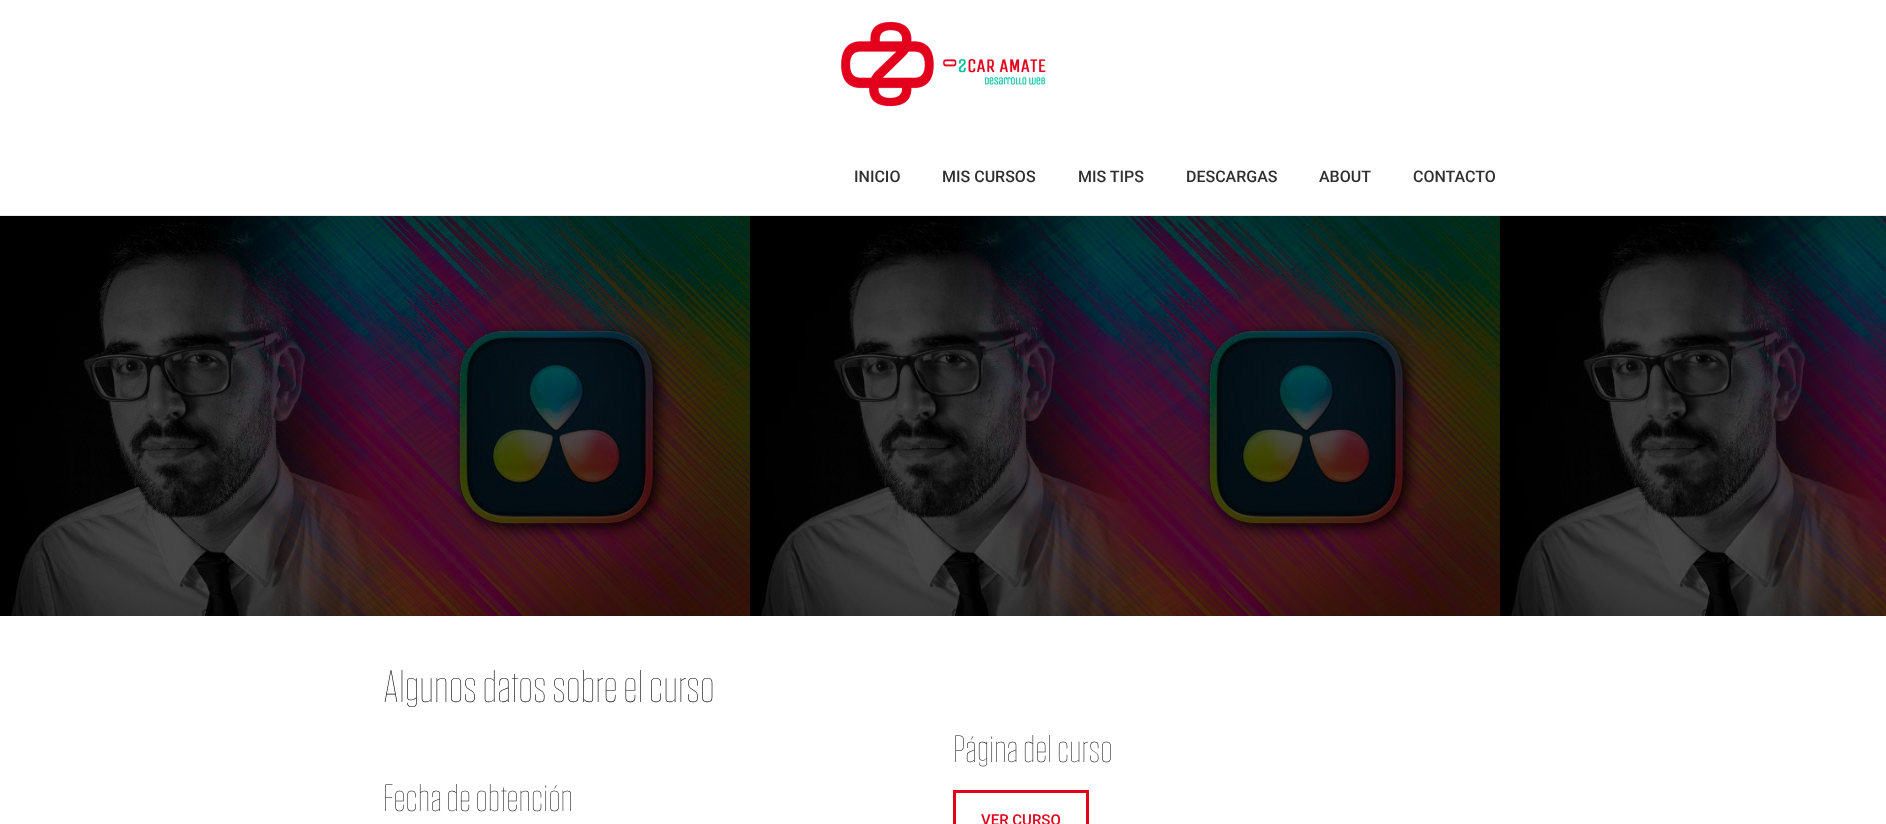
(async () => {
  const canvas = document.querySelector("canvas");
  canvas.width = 1886;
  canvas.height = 824;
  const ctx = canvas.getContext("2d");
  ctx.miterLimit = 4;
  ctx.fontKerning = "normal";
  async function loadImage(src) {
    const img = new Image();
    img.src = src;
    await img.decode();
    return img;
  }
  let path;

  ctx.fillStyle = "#ffffff";
  ctx.fillRect(0, 0, 1886, 824);
  ctx.fillStyle = "#e6e6e6";
  ctx.fillRect(0, 215, 1886, 1);
  ctx.drawImage(await loadImage("img/1.png"), 841, 21, 205, 86);
  ctx.drawImage(await loadImage("img/2.png"), 0, 216, 1886, 400);
  path = new Path2D("M954.5 791.5H1087.5V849.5H954.5Z");
  ctx.strokeStyle = "#e2001d";
  ctx.lineWidth = 3;
  ctx.stroke(path);
  ctx.font = "500 16px Roboto";
  ctx.fillStyle = "#2f2f2f";
  for (const [text, x, y] of [
    ["INICIO", 854, 182],
    ["MIS CURSOS", 942, 182],
    ["MIS TIPS", 1078, 182],
    ["DESCARGAS", 1186, 182],
    ["ABOUT", 1319, 182],
    ["CONTACTO", 1413, 182],
  ]) {
    ctx.fillText(text, x, y);
  }
  ctx.font = "100 45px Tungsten";
  ctx.fillStyle = "#000000";
  ctx.fillText("Algunos datos sobre el curso", 383, 702);
  ctx.font = "100 38px Tungsten";
  ctx.fillText("Fecha de obtención", 383, 811);
  ctx.fillText("Página del curso", 953, 762);
  ctx.font = "500 15px Roboto";
  ctx.fillStyle = "#e2001d";
  ctx.fillText("VER CURSO", 981, 825);
})();
